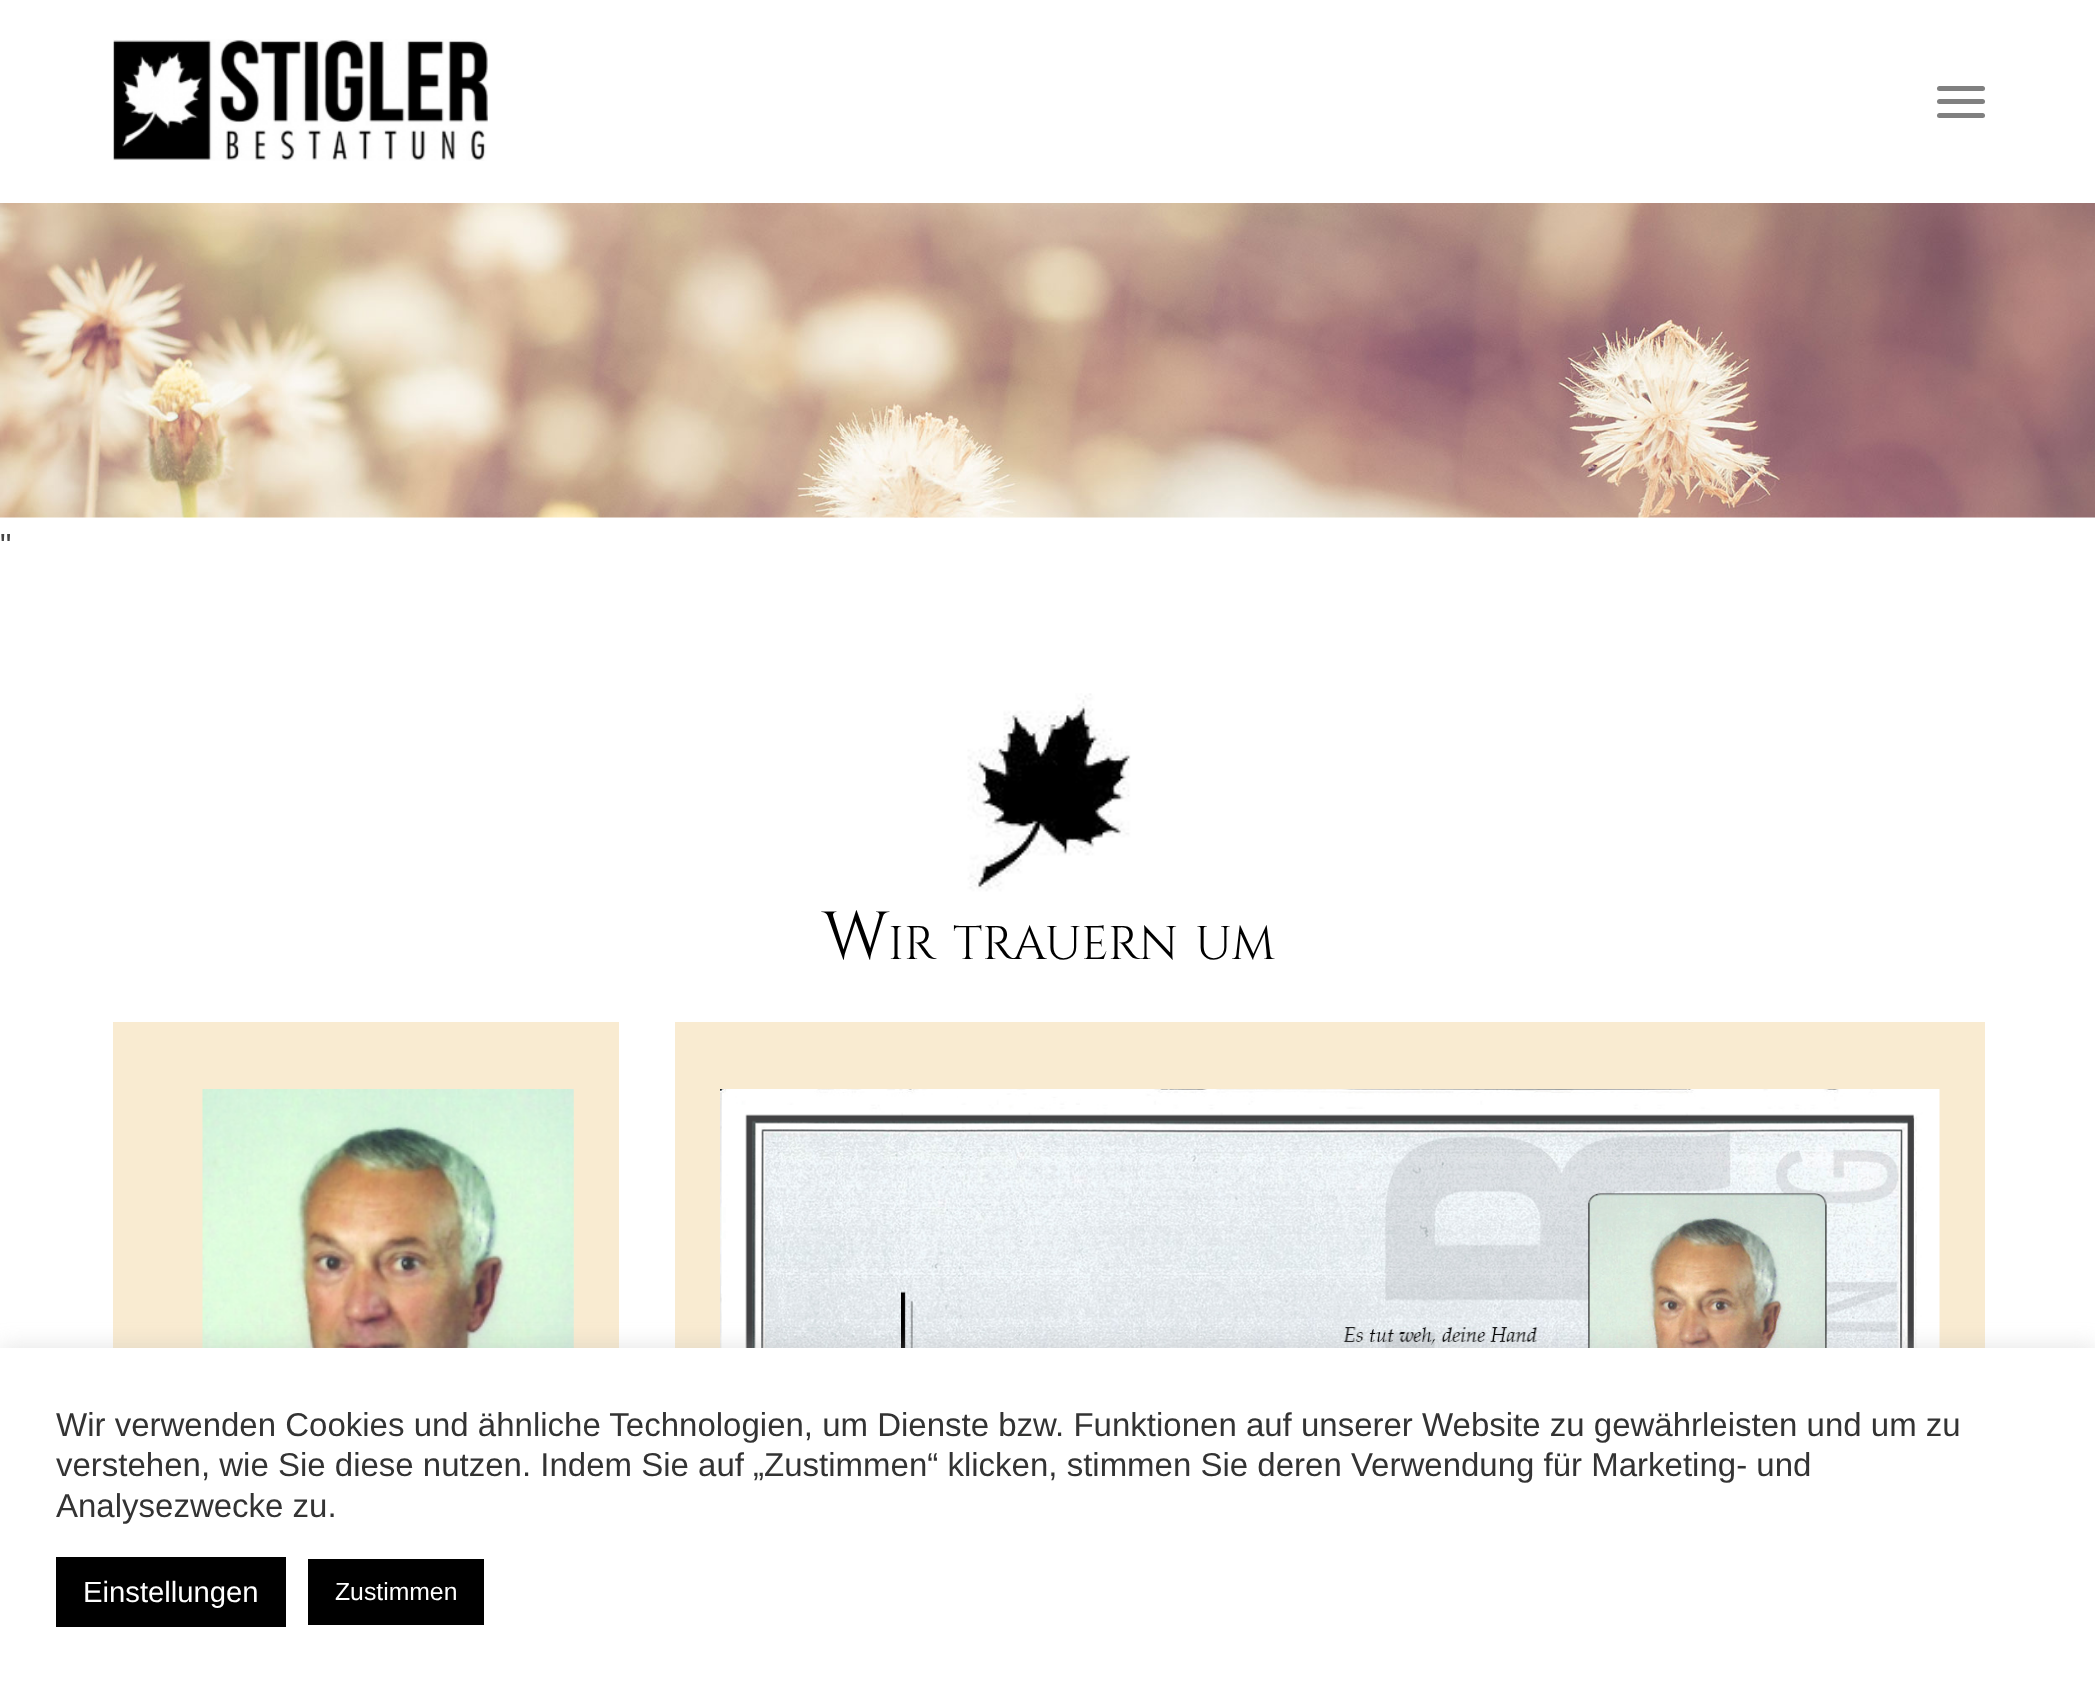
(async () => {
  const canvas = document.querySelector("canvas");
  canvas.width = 2095;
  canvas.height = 1690;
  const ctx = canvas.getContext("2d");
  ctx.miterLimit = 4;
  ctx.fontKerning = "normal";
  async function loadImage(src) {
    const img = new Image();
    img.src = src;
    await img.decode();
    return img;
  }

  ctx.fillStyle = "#ffffff";
  ctx.fillRect(0, 0, 2095, 1690);
  ctx.drawImage(await loadImage("img/1.png"), 113, 39, 375, 122);
  ctx.fillStyle = "#808080";
  ctx.beginPath();
  ctx.roundRect(1937, 99, 48, 5, 2.5);
  ctx.fill();
  ctx.beginPath();
  ctx.roundRect(1937, 86, 48, 5, 2.5);
  ctx.fill();
  ctx.beginPath();
  ctx.roundRect(1937, 113, 48, 5, 2.5);
  ctx.fill();
  ctx.drawImage(await loadImage("img/2.png"), 0, 203, 2095, 315);
  ctx.drawImage(await loadImage("img/3.png"), 967, 693, 164, 199);
  ctx.fillStyle = "#f9ebd1";
  ctx.fillRect(113, 1022, 506, 326);
  ctx.drawImage(await loadImage("img/4.png"), 202, 1089, 372, 259);
  ctx.fillRect(675, 1022, 1310, 326);
  ctx.drawImage(await loadImage("img/5.png"), 720, 1089, 1220, 259);
  ctx.fillStyle = "rgba(172, 171, 171, 0.3)";
  ctx.filter = "blur(11px)";
  ctx.beginPath();
  ctx.rect(0, 1346, 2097, 344);
  ctx.fill();
  ctx.filter = "none";
  for (const [x, y, w, h, color] of [
    [0, 1348, 2095, 342, "#ffffff"],
    [56, 1557, 230, 70, "#000000"],
    [308, 1559, 176, 66, "#000000"],
  ]) {
    ctx.fillStyle = color;
    ctx.fillRect(x, y, w, h);
  }
  ctx.font = "32px Liberation Sans";
  ctx.fillStyle = "#444444";
  ctx.fillText("\"", 0, 556);
  ctx.font = "68px Cinzel";
  ctx.fillStyle = "#000000";
  ctx.fillText("W", 822, 959);
  ctx.font = "47.25px Cinzel";
  for (const [text, x, y] of [
    ["IR", 888, 959],
    ["TRAUERN", 953, 959],
    ["UM", 1195, 959],
  ]) {
    ctx.fillText(text, x, y);
  }
  ctx.font = "33px Liberation Sans";
  ctx.fillStyle = "#333333";
  for (const [text, x, y] of [
    ["Wir verwenden Cookies und ähnliche Technologien, um Dienste bzw. Funktionen auf unserer Website zu gewährleisten und um zu", 56, 1436],
    ["verstehen, wie Sie diese nutzen. Indem Sie auf „Zustimmen“ klicken, stimmen Sie deren Verwendung für Marketing- und", 56, 1476],
    ["Analysezwecke zu.", 56, 1517],
  ]) {
    ctx.fillText(text, x, y);
  }
  ctx.font = "29.25px Liberation Sans";
  ctx.fillStyle = "#ffffff";
  ctx.fillText("Einstellungen", 83, 1602);
  ctx.font = "24.75px Liberation Sans";
  ctx.fillText("Zustimmen", 335, 1600);
})();
